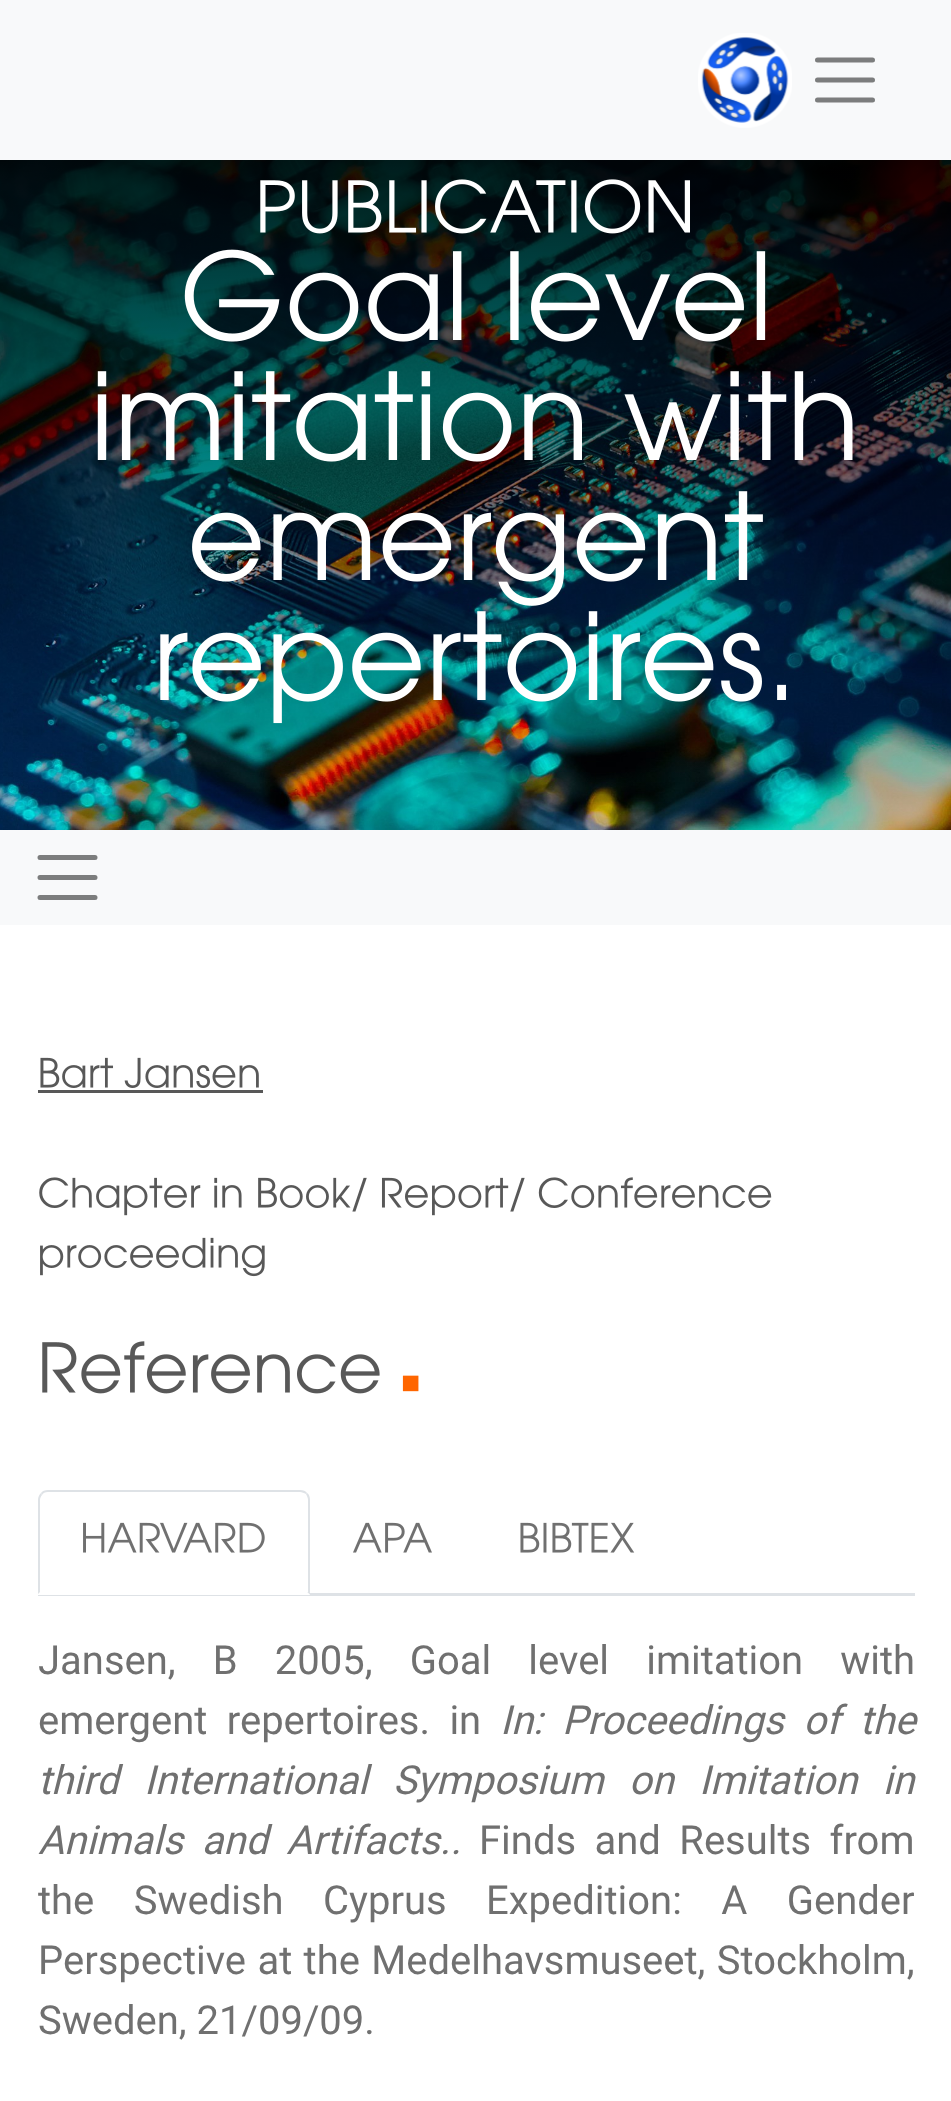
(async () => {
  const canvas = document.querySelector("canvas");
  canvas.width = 951;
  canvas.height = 2101;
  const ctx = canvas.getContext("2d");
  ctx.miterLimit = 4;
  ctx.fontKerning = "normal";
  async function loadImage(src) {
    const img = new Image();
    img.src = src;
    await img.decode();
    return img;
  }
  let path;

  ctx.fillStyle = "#ffffff";
  ctx.fillRect(0, 0, 951, 2101);
  ctx.fillStyle = "#f8f9fa";
  ctx.fillRect(0, 0, 951, 160);
  ctx.drawImage(await loadImage("img/1.png"), 698, 33, 94, 95);
  path = new Path2D("M817.5 60H872.5M817.5 80H872.5M817.5 100H872.5");
  ctx.strokeStyle = "#7c7d7d";
  ctx.lineWidth = 5;
  ctx.lineCap = "round";
  ctx.stroke(path);
  ctx.drawImage(await loadImage("img/2.png"), 0, 160, 951, 670);
  ctx.drawImage(await loadImage("img/3.png"), 260, 179, 430, 55);
  ctx.drawImage(await loadImage("img/4.png"), 184, 249, 582, 93);
  ctx.drawImage(await loadImage("img/5.png"), 97, 371, 756, 91);
  ctx.drawImage(await loadImage("img/6.png"), 192, 491, 571, 115);
  ctx.drawImage(await loadImage("img/7.png"), 160, 611, 626, 113);
  ctx.fillRect(0, 830, 951, 95);
  path = new Path2D("M40 857.5H95M40 877.5H95M40 897.5H95");
  ctx.stroke(path);
  ctx.drawImage(await loadImage("img/8.png"), 40, 1057, 219, 31);
  ctx.fillStyle = "#585858";
  ctx.fillRect(38, 1090, 225, 3);
  ctx.drawImage(await loadImage("img/9.png"), 39, 1177, 733, 39);
  ctx.drawImage(await loadImage("img/10.png"), 40, 1237, 225, 40);
  ctx.drawImage(await loadImage("img/11.png"), 42, 1341, 338, 53);
  ctx.fillStyle = "#dee2e6";
  ctx.fillRect(38, 1593, 877, 3);
  ctx.fillStyle = "#ffffff";
  ctx.beginPath();
  ctx.roundRect(38, 1490, 272, 105, [10, 10, 0, 0]);
  ctx.fill();
  ctx.fillStyle = "#dee2e6";
  path = new Path2D("M48 1490C45 1490 42 1491 41 1493L42 1495C43 1493 45 1492 48 1492H300C302 1492 304 1493 306 1494L307 1493C306 1491 303 1490 300 1490Z");
  ctx.fill(path);
  path = new Path2D("M310 1595V1500C310 1497 309 1494 307 1493L306 1494C307 1496 308 1498 308 1500V1592H307Z");
  ctx.fill(path);
  ctx.fillStyle = "#ffffff";
  path = new Path2D("M310 1595L307 1592H40L38 1595Z");
  ctx.fill(path);
  ctx.fillStyle = "#dee2e6";
  path = new Path2D("M41 1493C39 1495 38 1497 38 1500V1594L40 1592V1500C40 1498 41 1496 42 1495Z");
  ctx.fill(path);
  ctx.drawImage(await loadImage("img/12.png"), 83, 1522, 182, 31);
  ctx.drawImage(await loadImage("img/13.png"), 353, 1522, 79, 31);
  ctx.drawImage(await loadImage("img/14.png"), 520, 1522, 115, 31);
  ctx.font = "32px Liberation Serif";
  ctx.fillStyle = "#ff6600";
  ctx.fillText("■", 401, 1393);
  ctx.wordSpacing = "27.25px";
  ctx.font = "40px Roboto";
  ctx.fillStyle = "#707070";
  ctx.fillText("Jansen, B 2005, Goal level imitation with", 38, 1674);
  ctx.wordSpacing = "9.5px";
  ctx.fillText("emergent repertoires. in", 38, 1734);
  ctx.font = "italic 40px Roboto";
  ctx.fillText("In: Proceedings of the", 500, 1734);
  ctx.wordSpacing = "15.5px";
  ctx.fillText("third International Symposium on Imitation in", 38, 1794);
  ctx.wordSpacing = "8.5px";
  ctx.fillText("Animals and Artifacts..", 38, 1854);
  ctx.font = "40px Roboto";
  ctx.fillText("Finds and Results from", 479, 1854);
  ctx.wordSpacing = "29.5px";
  ctx.fillText("the Swedish Cyprus Expedition: A Gender", 38, 1914);
  ctx.wordSpacing = "1.5px";
  ctx.fillText("Perspective at the Medelhavsmuseet, Stockholm,", 38, 1974);
  ctx.wordSpacing = "0px";
  ctx.fillText("Sweden, 21/09/09.", 38, 2034);
})();
